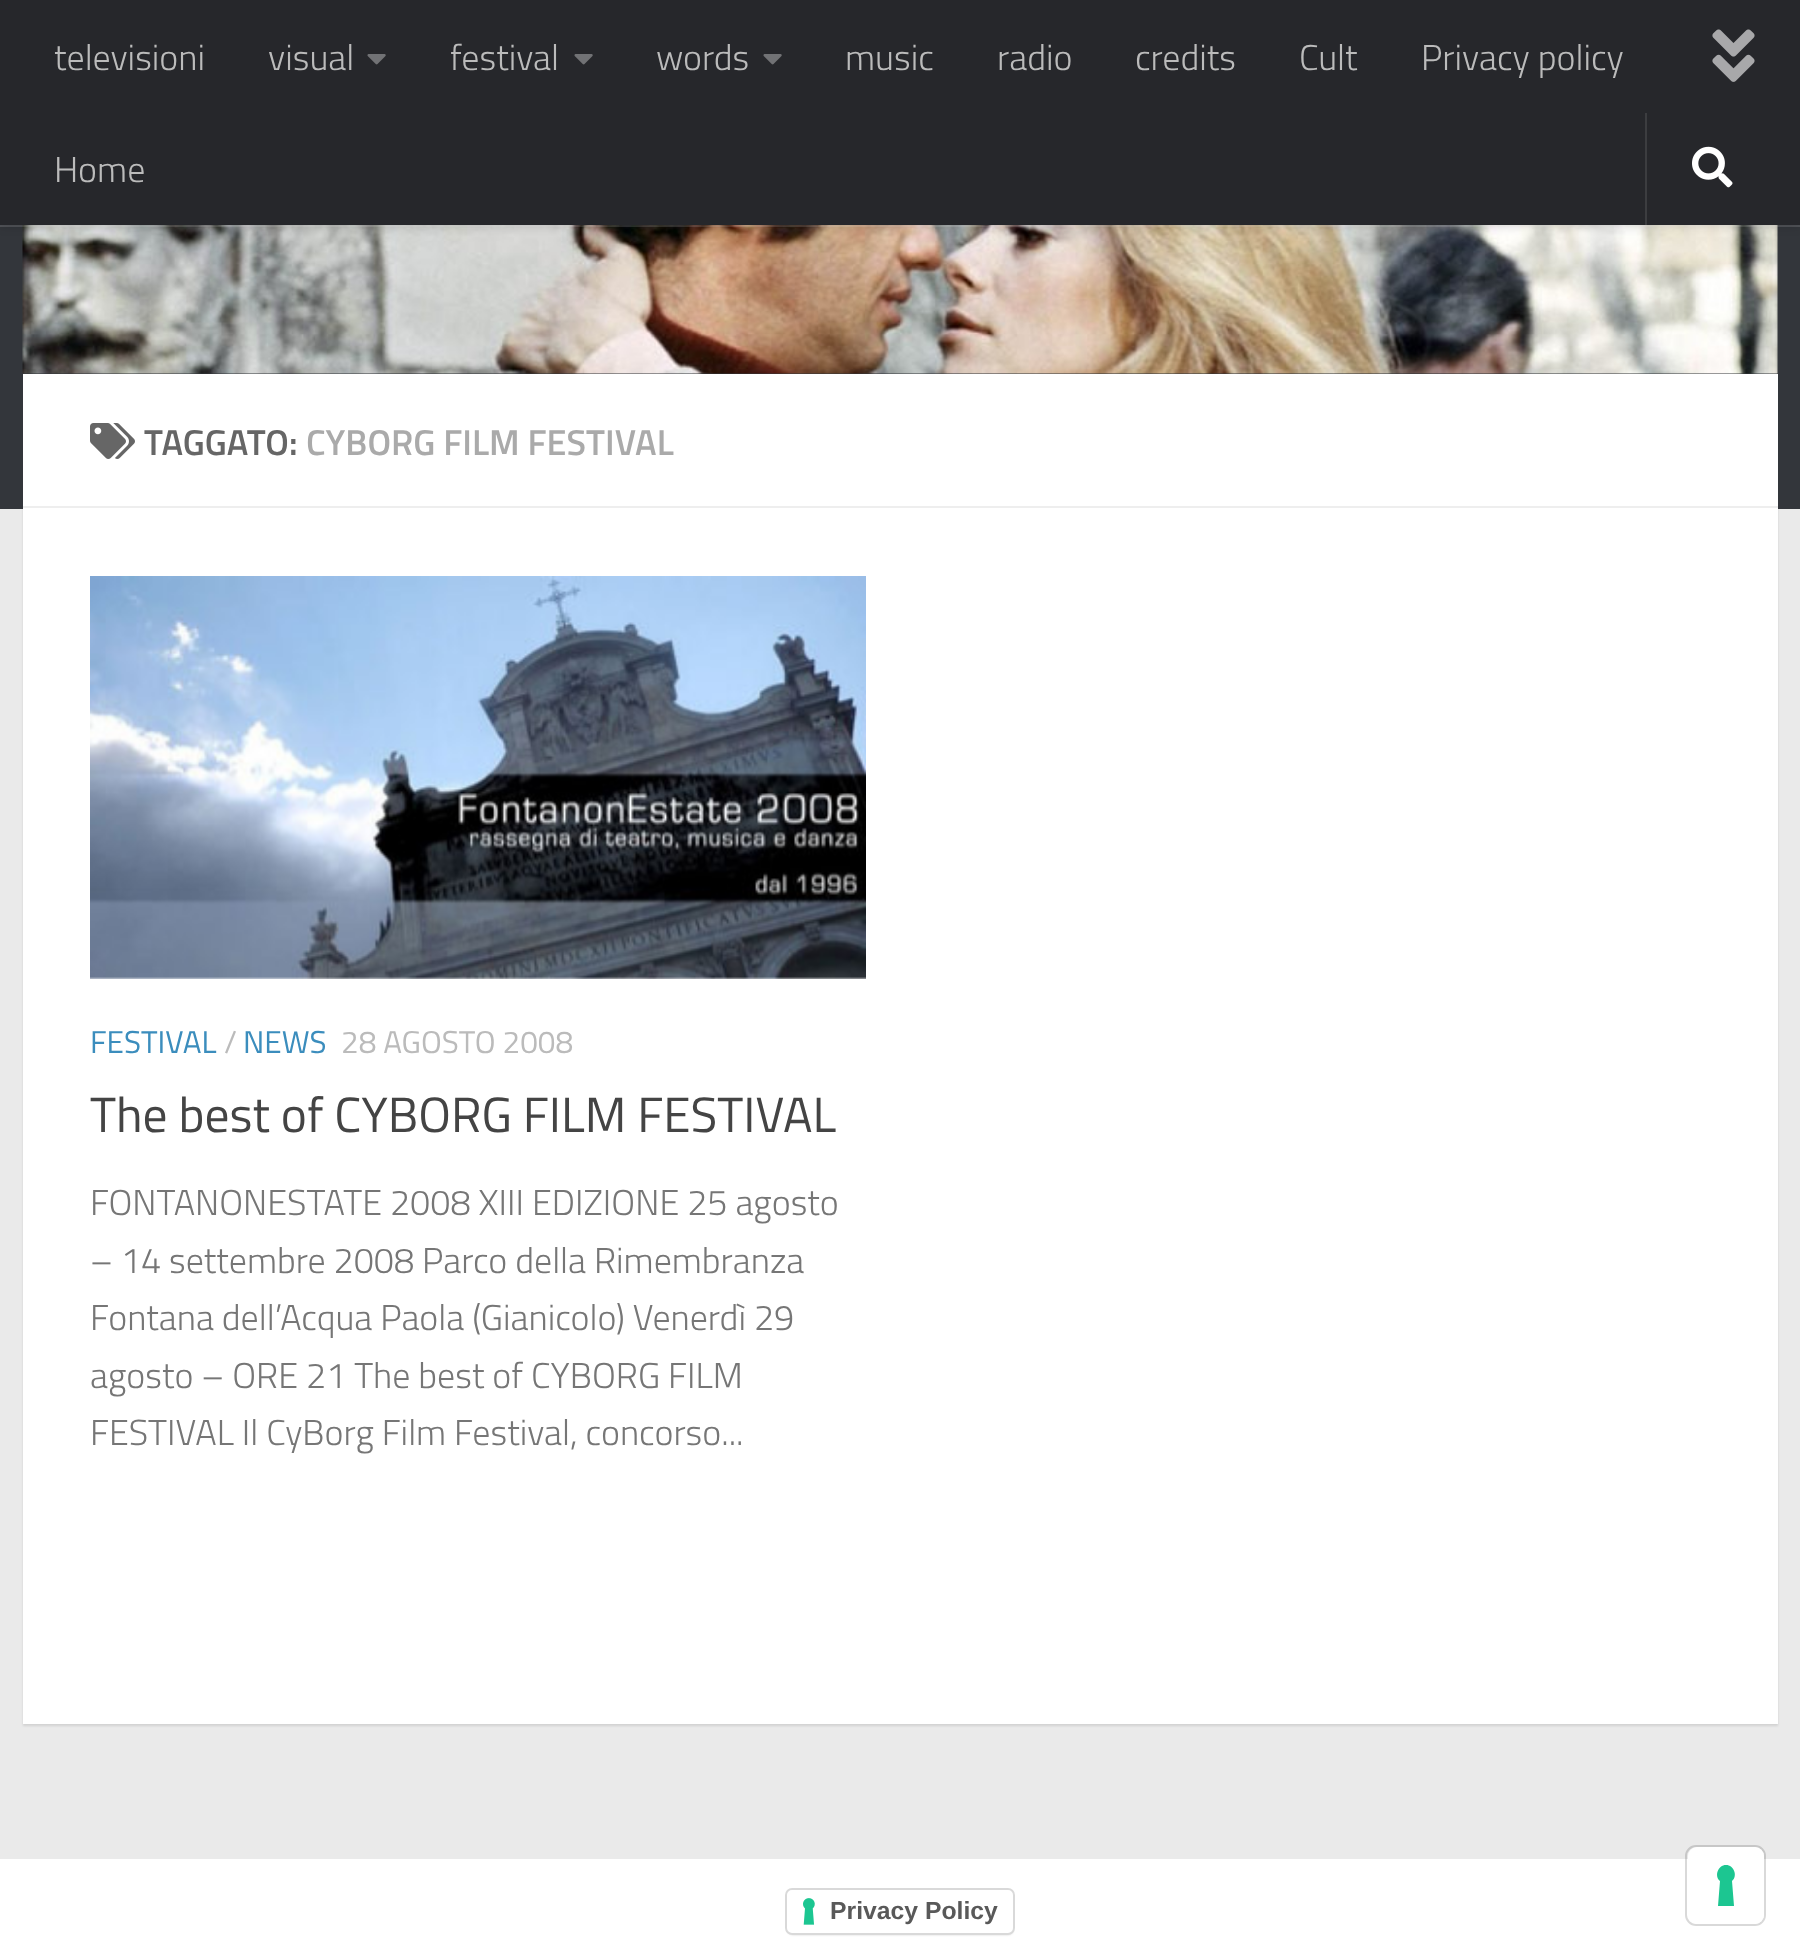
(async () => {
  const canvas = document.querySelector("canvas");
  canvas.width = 1800;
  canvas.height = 1959;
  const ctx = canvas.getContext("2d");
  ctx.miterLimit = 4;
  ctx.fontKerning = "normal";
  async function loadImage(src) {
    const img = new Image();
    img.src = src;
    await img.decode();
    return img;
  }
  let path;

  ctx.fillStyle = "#eaeaea";
  ctx.fillRect(0, 0, 1800, 1959);
  ctx.fillStyle = "rgba(0, 0, 0, 0.1)";
  ctx.filter = "blur(1px)";
  ctx.beginPath();
  ctx.rect(23, 376, 1755, 1350);
  ctx.fill();
  ctx.filter = "none";
  ctx.fillStyle = "#33363b";
  ctx.fillRect(0, 225, 1800, 284);
  ctx.drawImage(await loadImage("img/4.png"), 22, 225, 1756, 149);
  ctx.fillStyle = "rgba(255, 255, 255, 0.15)";
  ctx.fillRect(0, 225, 1800, 2);
  ctx.fillStyle = "rgba(0, 0, 0, 0.2)";
  ctx.filter = "blur(5.5px)";
  ctx.beginPath();
  ctx.rect(0, 0, 1800, 225);
  ctx.fill();
  ctx.filter = "none";
  ctx.fillStyle = "#26272b";
  ctx.fillRect(0, 0, 1800, 225);
  ctx.drawImage(await loadImage("img/1.png"), 367, 54, 19, 11);
  ctx.drawImage(await loadImage("img/1.png"), 574, 54, 19, 11);
  ctx.drawImage(await loadImage("img/1.png"), 763, 54, 19, 11);
  ctx.fillStyle = "#3c3d40";
  ctx.fillRect(1645, 113, 2, 112);
  ctx.drawImage(await loadImage("img/2.png"), 1692, 146, 41, 42);
  ctx.drawImage(await loadImage("img/3.png"), 1712, 29, 43, 53);
  ctx.fillStyle = "#ffffff";
  ctx.fillRect(23, 374, 1755, 1350);
  ctx.fillStyle = "#eeeeee";
  ctx.fillRect(23, 506, 1755, 2);
  ctx.drawImage(await loadImage("img/5.png"), 90, 423, 45, 36);
  ctx.drawImage(await loadImage("img/6.png"), 90, 576, 776, 403);
  ctx.fillStyle = "#ffffff";
  ctx.fillRect(0, 1859, 1800, 100);
  ctx.fillStyle = "rgba(0, 0, 0, 0.15)";
  ctx.filter = "blur(1px)";
  ctx.beginPath();
  ctx.roundRect(788, 1892, 225, 43, 5);
  ctx.fill();
  ctx.filter = "none";
  ctx.fillStyle = "#ffffff";
  ctx.beginPath();
  ctx.roundRect(785, 1888, 230, 47, 7);
  ctx.fill();
  ctx.drawImage(await loadImage("img/7.png"), 803, 1898, 12, 27);
  ctx.beginPath();
  ctx.roundRect(786, 1889, 228, 45, 6);
  ctx.strokeStyle = "rgba(0, 0, 0, 0.15)";
  ctx.lineWidth = 2;
  ctx.stroke();
  ctx.beginPath();
  ctx.roundRect(1686, 1846, 79, 79, 10);
  ctx.stroke();
  ctx.beginPath();
  ctx.roundRect(1688, 1847, 76, 77, 9);
  ctx.fill();
  ctx.fillStyle = "#1cc691";
  path = new Path2D("M1726 1865C1734 1865 1738 1876 1732 1881L1734 1906H1718L1720 1881C1714 1876 1718 1865 1726 1865Z");
  ctx.fill(path, "evenodd");
  ctx.font = "300 36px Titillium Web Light";
  ctx.fillStyle = "#bbbbbb";
  for (const [text, x, y] of [
    ["televisioni", 54, 70],
    ["visual", 268, 70],
    ["festival", 450, 70],
    ["words", 656, 70],
    ["music", 845, 70],
    ["radio", 997, 70],
    ["credits", 1135, 70],
    ["Cult", 1299, 70],
    ["Privacy policy", 1421, 70],
    ["Home", 54, 182],
  ]) {
    ctx.fillText(text, x, y);
  }
  ctx.font = "600 36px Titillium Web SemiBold";
  ctx.fillStyle = "#666666";
  ctx.fillText("TAGGATO:", 144, 455);
  ctx.fillStyle = "#aaaaaa";
  ctx.fillText("CYBORG FILM FESTIVAL", 306, 455);
  ctx.font = "31.5px Titillium Web";
  ctx.fillStyle = "#3b8dbd";
  ctx.fillText("FESTIVAL", 90, 1053);
  ctx.fillStyle = "#bbbbbb";
  ctx.fillText("/", 224, 1053);
  ctx.fillStyle = "#3b8dbd";
  ctx.fillText("NEWS", 243, 1053);
  ctx.fillStyle = "#bbbbbb";
  ctx.fillText("28 AGOSTO 2008", 341, 1053);
  ctx.font = "49.5px Titillium Web";
  ctx.fillStyle = "#444444";
  ctx.fillText("The best of CYBORG FILM FESTIVAL", 90, 1132);
  ctx.font = "300 36px Titillium Web Light";
  ctx.fillStyle = "#767676";
  for (const [text, x, y] of [
    ["FONTANONESTATE 2008 XIII EDIZIONE 25 agosto", 90, 1215],
    ["– 14 settembre 2008 Parco della Rimembranza", 90, 1273],
    ["Fontana dell’Acqua Paola (Gianicolo) Venerdì 29", 90, 1330],
    ["agosto – ORE 21 The best of CYBORG FILM", 90, 1388],
    ["FESTIVAL Il CyBorg Film Festival, concorso...", 90, 1445],
  ]) {
    ctx.fillText(text, x, y);
  }
  ctx.font = "bold 24.75px Liberation Sans";
  ctx.fillStyle = "#595959";
  ctx.fillText("Privacy Policy", 830, 1919);
})();
